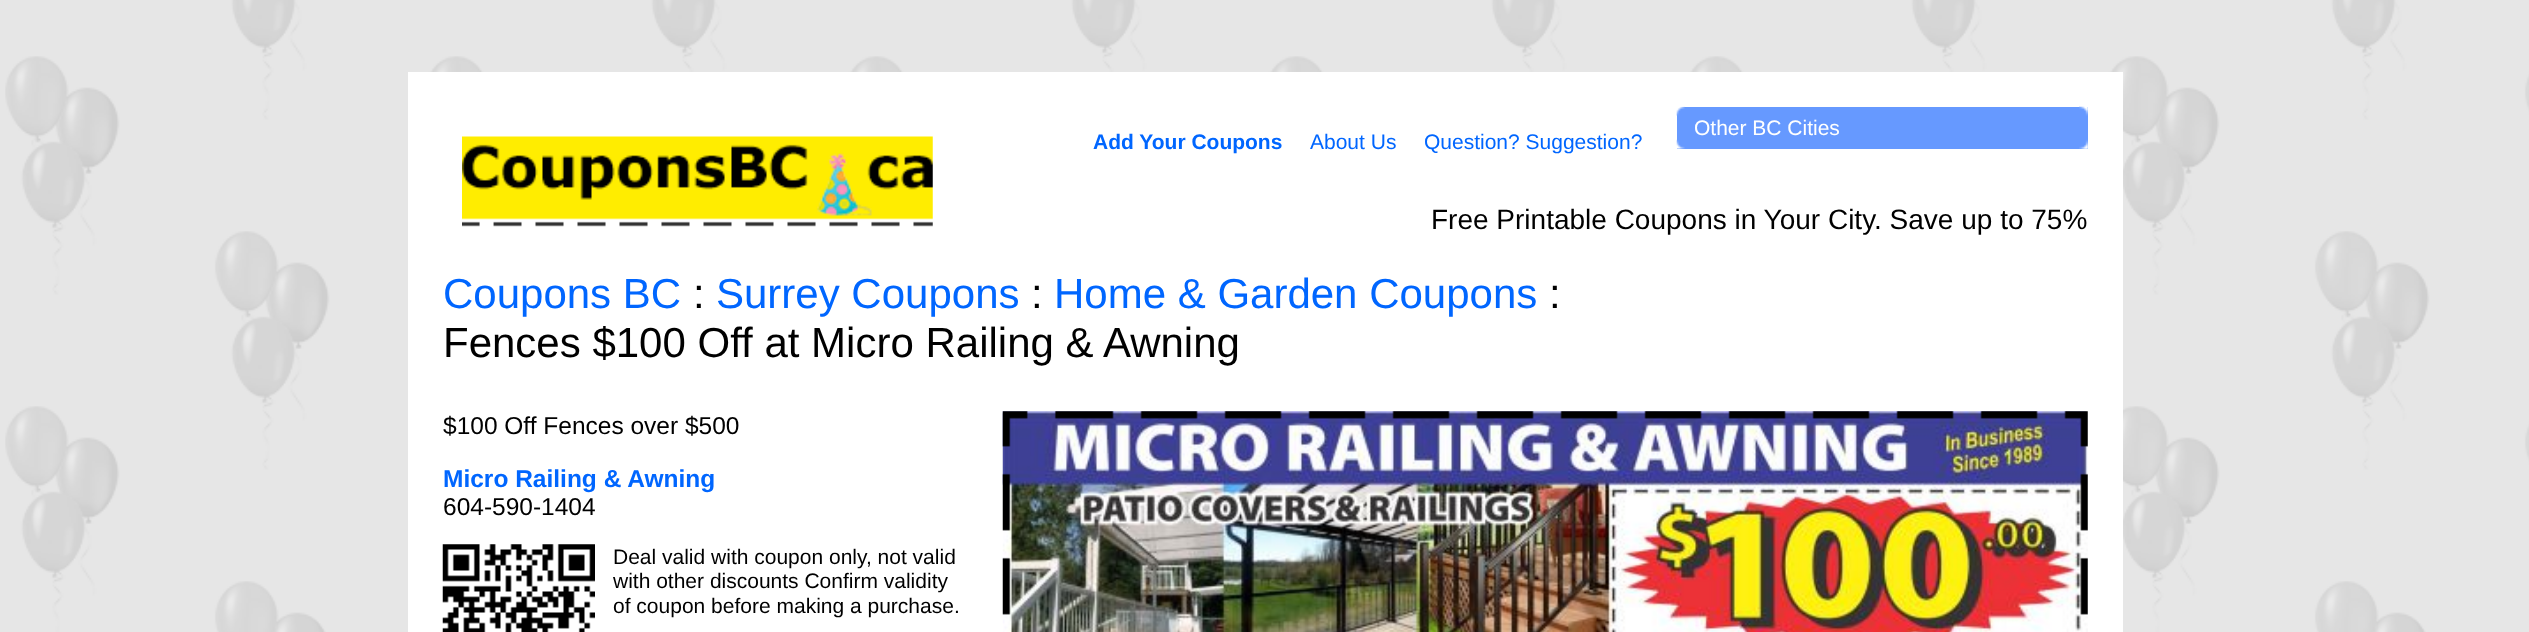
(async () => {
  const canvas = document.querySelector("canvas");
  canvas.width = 2529;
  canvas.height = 632;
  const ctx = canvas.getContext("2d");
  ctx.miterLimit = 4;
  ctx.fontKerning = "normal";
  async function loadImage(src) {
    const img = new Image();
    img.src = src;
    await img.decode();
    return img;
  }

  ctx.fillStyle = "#e6e6e6";
  ctx.fillRect(0, 0, 2529, 632);
  ctx.drawImage(await loadImage("img/1.png"), 5, 0, 2524, 632);
  ctx.fillStyle = "#ffffff";
  ctx.fillRect(408, 72, 1715, 560);
  ctx.drawImage(await loadImage("img/2.png"), 462, 136, 471, 91);
  ctx.fillStyle = "#6699ff";
  ctx.fillRect(1677, 107, 411, 42);
  ctx.drawImage(await loadImage("img/3.png"), 2079, 106, 9, 43);
  ctx.drawImage(await loadImage("img/4.png"), 1676, 106, 9, 43);
  ctx.drawImage(await loadImage("img/5.png"), 442, 544, 153, 88);
  ctx.drawImage(await loadImage("img/6.png"), 1002, 411, 1086, 221);
  ctx.drawImage(await loadImage("img/7.png"), 1002, 411, 1086, 204);
  ctx.font = "21px Liberation Sans";
  ctx.fillStyle = "#ffffff";
  ctx.fillText("Other BC Cities", 1694, 135);
  ctx.font = "bold 21px Liberation Sans";
  ctx.fillStyle = "#0066ff";
  ctx.fillText("Add Your Coupons", 1093, 149);
  ctx.font = "21px Liberation Sans";
  ctx.fillText("About Us", 1310, 149);
  ctx.fillText("Question? Suggestion?", 1424, 149);
  ctx.font = "28px Liberation Sans";
  ctx.fillStyle = "#000000";
  ctx.fillText("Free Printable Coupons in Your City. Save up to 75%", 1431, 229);
  ctx.font = "42px Liberation Sans";
  ctx.fillStyle = "#0066ff";
  ctx.fillText("Coupons BC", 443, 308);
  ctx.fillStyle = "#000000";
  ctx.fillText(":", 693, 308);
  ctx.fillStyle = "#0066ff";
  ctx.fillText("Surrey Coupons", 716, 308);
  ctx.fillStyle = "#000000";
  ctx.fillText(":", 1031, 308);
  ctx.fillStyle = "#0066ff";
  ctx.fillText("Home & Garden Coupons", 1054, 308);
  ctx.fillStyle = "#000000";
  ctx.fillText(":", 1549, 308);
  ctx.fillText("Fences $100 Off at Micro Railing & Awning", 443, 357);
  ctx.font = "24.5px Liberation Sans";
  ctx.fillText("$100 Off Fences over $500", 443, 434);
  ctx.font = "bold 24.5px Liberation Sans";
  ctx.fillStyle = "#0066ff";
  ctx.fillText("Micro Railing & Awning", 443, 487);
  ctx.font = "24.5px Liberation Sans";
  ctx.fillStyle = "#000000";
  ctx.fillText("604-590-1404", 443, 515);
  ctx.font = "21px Liberation Sans";
  for (const [text, x, y] of [
    ["Deal valid with coupon only, not valid", 613, 564],
    ["with other discounts Confirm validity", 613, 588],
    ["of coupon before making a purchase.", 613, 613],
  ]) {
    ctx.fillText(text, x, y);
  }
})();
